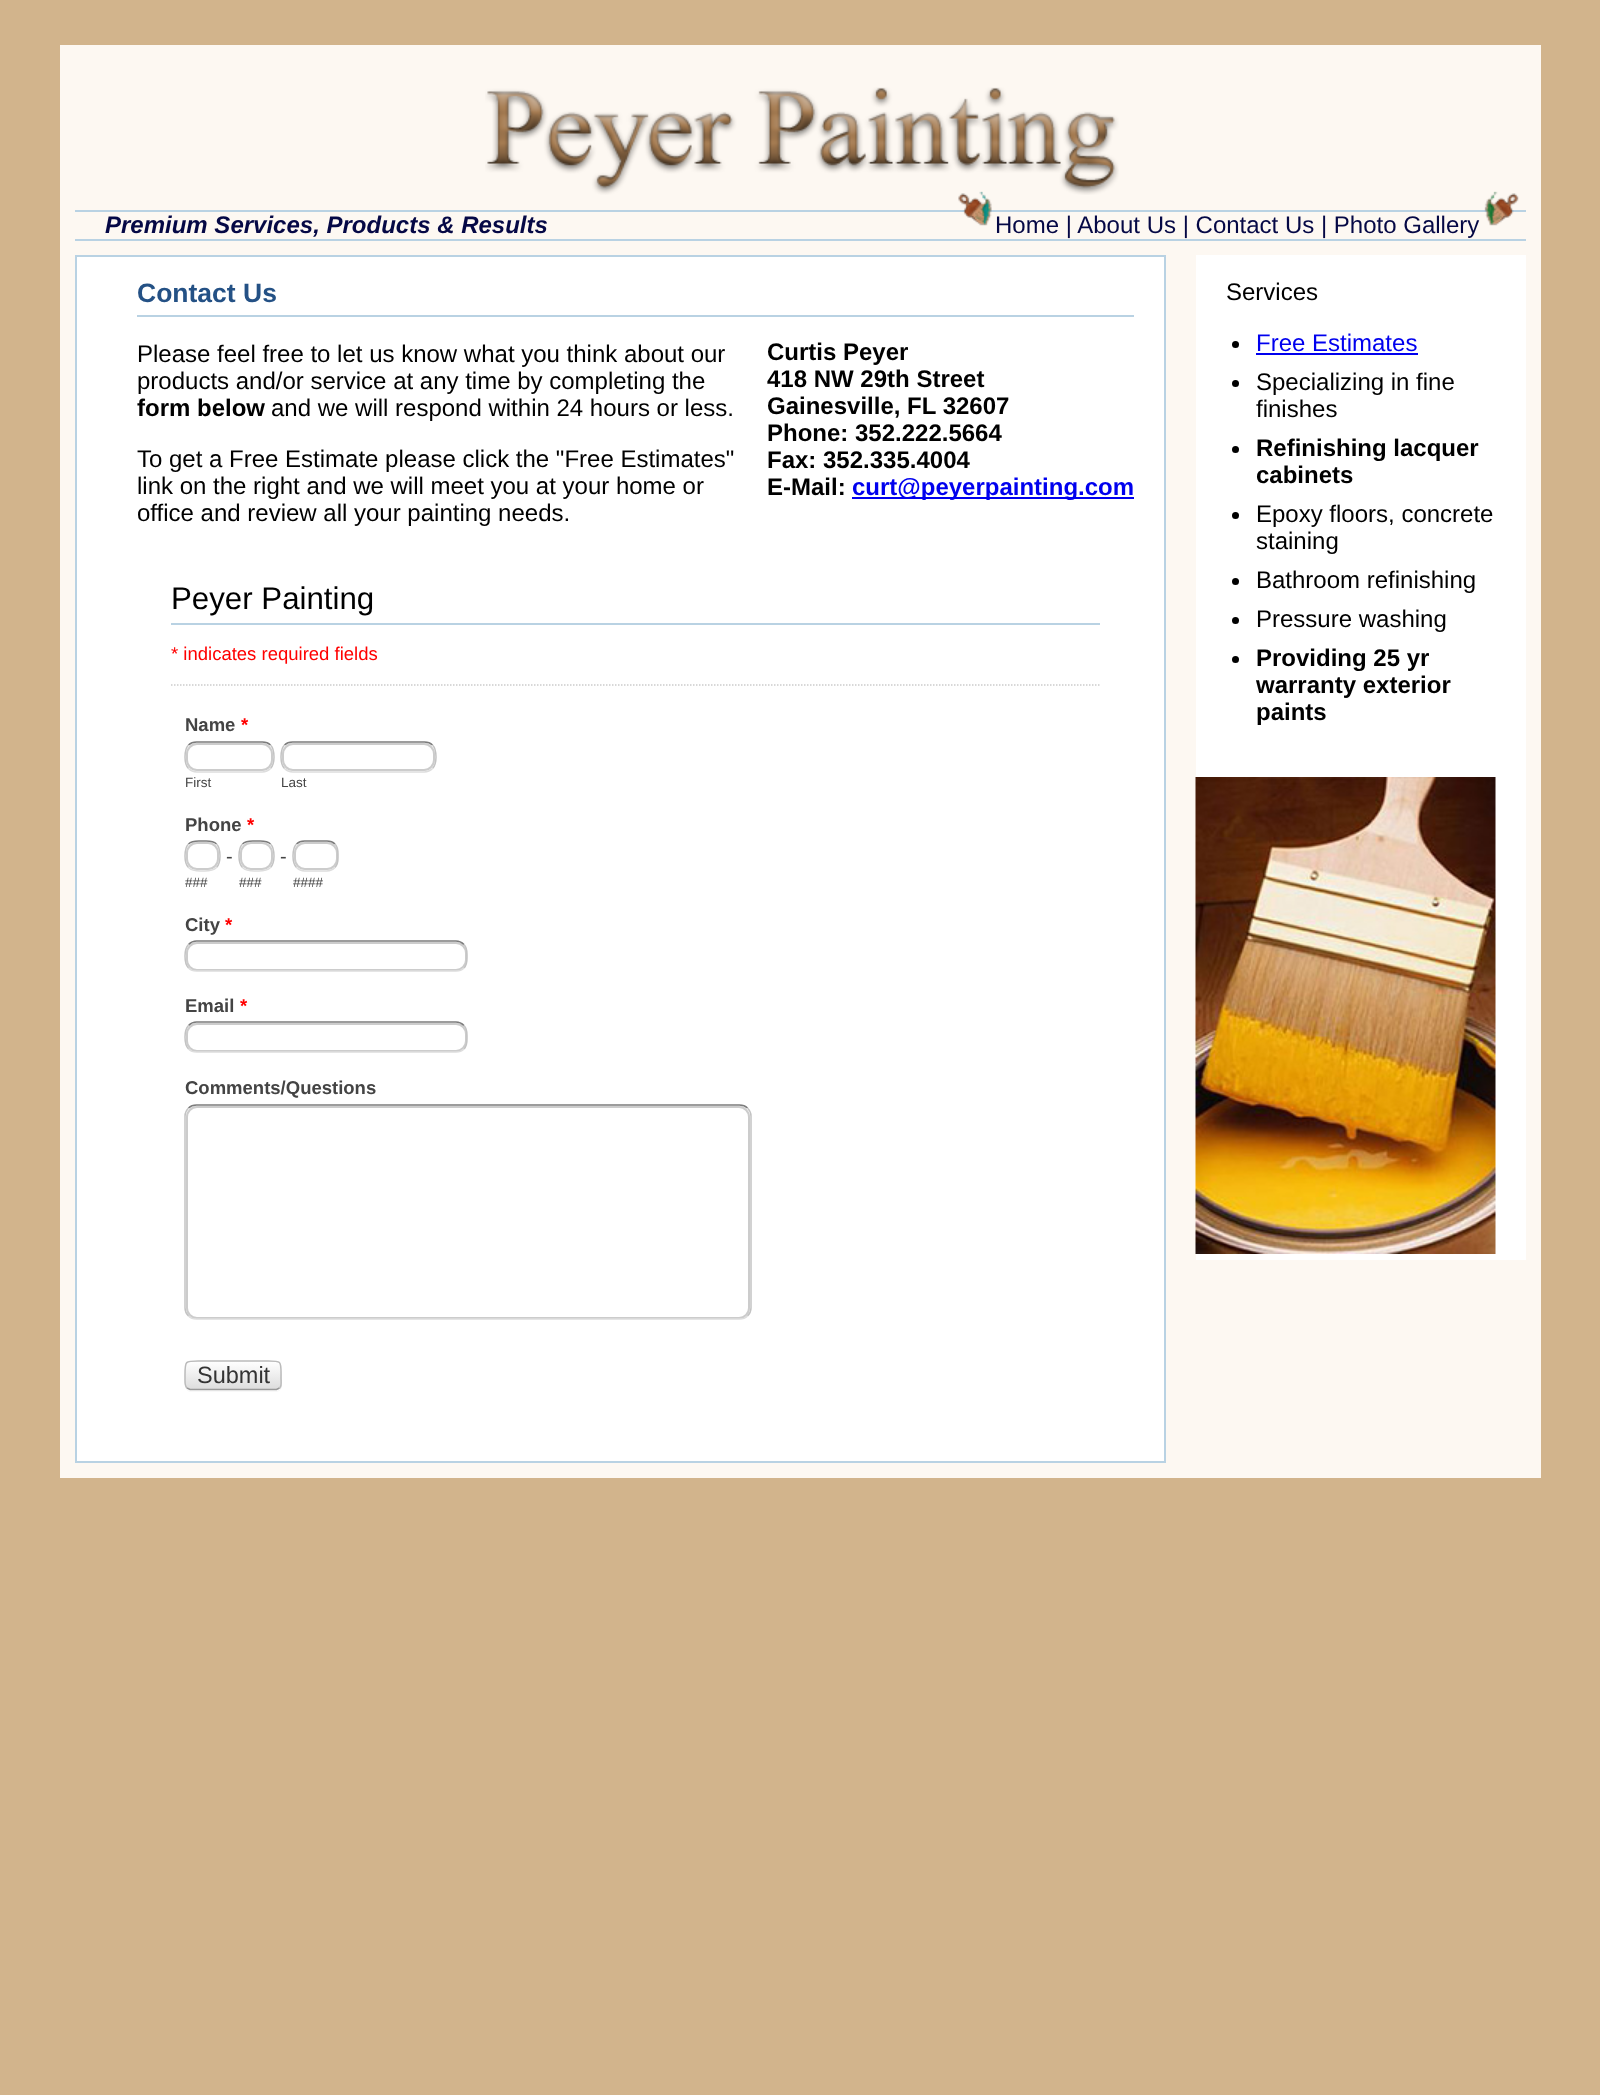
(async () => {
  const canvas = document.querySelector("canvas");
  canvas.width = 1600;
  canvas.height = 2095;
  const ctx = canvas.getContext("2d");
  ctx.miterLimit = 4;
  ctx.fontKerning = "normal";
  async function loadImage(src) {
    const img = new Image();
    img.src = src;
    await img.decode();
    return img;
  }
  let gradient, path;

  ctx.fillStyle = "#d2b48c";
  ctx.fillRect(0, 0, 1600, 2095);
  ctx.fillStyle = "#fdf8f2";
  ctx.fillRect(60, 45, 1481, 1433);
  ctx.drawImage(await loadImage("img/1.png"), 485, 87, 634, 108);
  ctx.fillStyle = "#b9d2e3";
  ctx.fillRect(75, 210, 1451, 2);
  ctx.fillRect(75, 239, 1451, 2);
  ctx.drawImage(await loadImage("img/2.png"), 958, 191, 34, 35);
  ctx.drawImage(await loadImage("img/3.png"), 1484, 191, 35, 35);
  ctx.fillStyle = "#ffffff";
  ctx.beginPath();
  ctx.rect(76, 256, 1089, 1206);
  ctx.fill();
  ctx.strokeStyle = "#b9d2e3";
  ctx.lineWidth = 2;
  ctx.stroke();
  ctx.fillStyle = "#b9d2e3";
  ctx.fillRect(137, 315, 997, 2);
  ctx.fillStyle = "#0000ee";
  ctx.fillRect(852, 497, 282, 2);
  path = new Path2D("M171 685H1099.5");
  ctx.strokeStyle = "#cccccc";
  ctx.lineWidth = 1.5;
  ctx.setLineDash([1.5, 1.5]);
  ctx.stroke(path);
  ctx.fillStyle = "#b9d2e3";
  ctx.fillRect(171, 623, 929, 2);
  ctx.beginPath();
  ctx.roundRect(187, 744, 85, 26, 10);
  ctx.lineWidth = 2;
  ctx.setLineDash([]);
  ctx.stroke();
  path = new Path2D("M188.5 745C190.5 743 193.5 742 196.5 742H262.5C265.5 742 268.5 743 270.5 745");
  ctx.strokeStyle = "#7c7c7c";
  ctx.lineWidth = 1.5;
  ctx.stroke(path);
  path = new Path2D("M270.5 745C274 748.5 274 752.5 274 757C274 761 274 765 270.5 768.5");
  ctx.strokeStyle = "#c3c3c3";
  ctx.stroke(path);
  path = new Path2D("M270.5 768.5C268.5 770.5 265.5 772 262.5 772H196.5C193.5 772 190.5 770.5 188.5 768.5");
  ctx.strokeStyle = "#dddddd";
  ctx.stroke(path);
  path = new Path2D("M188.5 768.5C185 765 185 761 185 757C185 752.5 185 748.5 188.5 745");
  ctx.strokeStyle = "#c3c3c3";
  ctx.stroke(path);
  ctx.beginPath();
  ctx.roundRect(283, 744, 151, 26, 10);
  ctx.strokeStyle = "#cccccc";
  ctx.lineWidth = 2;
  ctx.stroke();
  path = new Path2D("M284.5 745C286.5 743 289.5 742 292.5 742H424.5C427.5 742 430.5 743 432.5 745");
  ctx.strokeStyle = "#7c7c7c";
  ctx.lineWidth = 1.5;
  ctx.stroke(path);
  path = new Path2D("M432.5 745C436 748.5 436 752.5 436 757C436 761 436 765 432.5 768.5");
  ctx.strokeStyle = "#c3c3c3";
  ctx.stroke(path);
  path = new Path2D("M432.5 768.5C430.5 770.5 427.5 772 424.5 772H292.5C289.5 772 286.5 770.5 284.5 768.5");
  ctx.strokeStyle = "#dddddd";
  ctx.stroke(path);
  path = new Path2D("M284.5 768.5C281 765 281 761 281 757C281 752.5 281 748.5 284.5 745");
  ctx.strokeStyle = "#c3c3c3";
  ctx.stroke(path);
  ctx.beginPath();
  ctx.roundRect(187, 843, 31, 26, 10);
  ctx.strokeStyle = "#cccccc";
  ctx.lineWidth = 2;
  ctx.stroke();
  path = new Path2D("M188.5 844C192.5 840 197.5 841 202.5 841C207.5 841 212.5 840 216.5 844");
  ctx.strokeStyle = "#7c7c7c";
  ctx.lineWidth = 1.5;
  ctx.stroke(path);
  path = new Path2D("M216.5 844C220 847.5 220 851.5 220 856C220 860 220 864 216.5 867.5");
  ctx.strokeStyle = "#c3c3c3";
  ctx.stroke(path);
  path = new Path2D("M216.5 867.5C212.5 871.5 207.5 871 202.5 871C197.5 871 192.5 871.5 188.5 867.5");
  ctx.strokeStyle = "#dddddd";
  ctx.stroke(path);
  path = new Path2D("M188.5 867.5C185 864 185 860 185 856C185 851.5 185 847.5 188.5 844");
  ctx.strokeStyle = "#c3c3c3";
  ctx.stroke(path);
  ctx.beginPath();
  ctx.roundRect(241, 843, 31, 26, 10);
  ctx.strokeStyle = "#cccccc";
  ctx.lineWidth = 2;
  ctx.stroke();
  path = new Path2D("M242.5 844C246.5 840 251.5 841 256.5 841C261.5 841 266.5 840 270.5 844");
  ctx.strokeStyle = "#7c7c7c";
  ctx.lineWidth = 1.5;
  ctx.stroke(path);
  path = new Path2D("M270.5 844C274 847.5 274 851.5 274 856C274 860 274 864 270.5 867.5");
  ctx.strokeStyle = "#c3c3c3";
  ctx.stroke(path);
  path = new Path2D("M270.5 867.5C266.5 871.5 261.5 871 256.5 871C251.5 871 246.5 871.5 242.5 867.5");
  ctx.strokeStyle = "#dddddd";
  ctx.stroke(path);
  path = new Path2D("M242.5 867.5C239 864 239 860 239 856C239 851.5 239 847.5 242.5 844");
  ctx.strokeStyle = "#c3c3c3";
  ctx.stroke(path);
  ctx.beginPath();
  ctx.roundRect(295, 843, 42, 26, 10);
  ctx.strokeStyle = "#cccccc";
  ctx.lineWidth = 2;
  ctx.stroke();
  path = new Path2D("M296.5 844C298.5 842 301.5 841 304.5 841H327C330 841 333 842 335 844");
  ctx.strokeStyle = "#7c7c7c";
  ctx.lineWidth = 1.5;
  ctx.stroke(path);
  path = new Path2D("M335 844C338.5 847.5 338 851.5 338 856C338 860 338.5 864 335 867.5");
  ctx.strokeStyle = "#c3c3c3";
  ctx.stroke(path);
  path = new Path2D("M335 867.5C333 869.5 330 871 327 871H304.5C301.5 871 298.5 869.5 296.5 867.5");
  ctx.strokeStyle = "#dddddd";
  ctx.stroke(path);
  path = new Path2D("M296.5 867.5C293 864 293 860 293 856C293 851.5 293 847.5 296.5 844");
  ctx.strokeStyle = "#c3c3c3";
  ctx.stroke(path);
  ctx.beginPath();
  ctx.roundRect(187, 943, 279, 27, 10);
  ctx.strokeStyle = "#cccccc";
  ctx.lineWidth = 2;
  ctx.stroke();
  path = new Path2D("M188.5 944.5C190.5 942.5 193.5 941 196.5 941H456C459 941 462 942.5 464 944.5");
  ctx.strokeStyle = "#7c7c7c";
  ctx.lineWidth = 1.5;
  ctx.stroke(path);
  path = new Path2D("M464 944.5C467.5 948 467 952 467 956C467 960.5 467.5 964.5 464 968");
  ctx.strokeStyle = "#c3c3c3";
  ctx.stroke(path);
  path = new Path2D("M464 968C462 970 459 971 456 971H196.5C193.5 971 190.5 970 188.5 968");
  ctx.strokeStyle = "#dddddd";
  ctx.stroke(path);
  path = new Path2D("M188.5 968C185 964.5 185 960.5 185 956C185 952 185 948 188.5 944.5");
  ctx.strokeStyle = "#c3c3c3";
  ctx.stroke(path);
  ctx.beginPath();
  ctx.roundRect(187, 1024, 279, 27, 10);
  ctx.strokeStyle = "#cccccc";
  ctx.lineWidth = 2;
  ctx.stroke();
  path = new Path2D("M188.5 1025.5C190.5 1023.5 193.5 1022 196.5 1022H456C459 1022 462 1023.5 464 1025.5");
  ctx.strokeStyle = "#7c7c7c";
  ctx.lineWidth = 1.5;
  ctx.stroke(path);
  path = new Path2D("M464 1025.5C467.5 1029 467 1033 467 1037C467 1041.5 467.5 1045.5 464 1049");
  ctx.strokeStyle = "#c3c3c3";
  ctx.stroke(path);
  path = new Path2D("M464 1049C462 1051 459 1052 456 1052H196.5C193.5 1052 190.5 1051 188.5 1049");
  ctx.strokeStyle = "#dddddd";
  ctx.stroke(path);
  path = new Path2D("M188.5 1049C185 1045.5 185 1041.5 185 1037C185 1033 185 1029 188.5 1025.5");
  ctx.strokeStyle = "#c3c3c3";
  ctx.stroke(path);
  ctx.beginPath();
  ctx.roundRect(187, 1107, 562, 211, 10);
  ctx.strokeStyle = "#cccccc";
  ctx.lineWidth = 2;
  ctx.stroke();
  path = new Path2D("M188.5 1108C190.5 1106 193.5 1105 196.5 1105H739.5C742.5 1105 745.5 1106 747.5 1108");
  ctx.strokeStyle = "#7c7c7c";
  ctx.lineWidth = 1.5;
  ctx.stroke(path);
  path = new Path2D("M747.5 1108C749.5 1110 751 1113 751 1116V1308C751 1311 749.5 1314 747.5 1316");
  ctx.strokeStyle = "#c3c3c3";
  ctx.stroke(path);
  path = new Path2D("M747.5 1316C745.5 1318 742.5 1319 739.5 1319H196.5C193.5 1319 190.5 1318 188.5 1316");
  ctx.strokeStyle = "#dddddd";
  ctx.stroke(path);
  path = new Path2D("M188.5 1316C186.5 1314 185 1311 185 1308V1116C185 1113 186.5 1110 188.5 1108");
  ctx.strokeStyle = "#c3c3c3";
  ctx.stroke(path);
  ctx.fillStyle = "#f8f8f8";
  path = new Path2D("M185 1387C186 1390 188 1392 191 1392H276C279 1392 282 1389 282 1386V1384C282 1388 279 1390 276 1390H190C188 1390 186 1389 185 1387Z");
  ctx.fill(path);
  ctx.save();
  ctx.beginPath();
  ctx.roundRect(185, 1361, 97, 30, 6);
  ctx.clip();
  gradient = ctx.createLinearGradient(186, 1362, 186, 1389);
  gradient.addColorStop(0, "#fefefe");
  gradient.addColorStop(1, "#dddddd");
  ctx.fillStyle = gradient;
  ctx.fillRect(185, 1362, 97, 27);
  gradient = ctx.createLinearGradient(186, 1389, 186, 1416);
  gradient.addColorStop(0, "#fefefe");
  gradient.addColorStop(1, "#dddddd");
  ctx.fillStyle = gradient;
  ctx.fillRect(185, 1389, 97, 2);
  ctx.restore();
  path = new Path2D("M279.5 1388L276.5 1389.5H190L187 1388");
  ctx.strokeStyle = "#999999";
  ctx.stroke(path);
  path = new Path2D("M187 1388C184.5 1386 185 1381.5 185 1378.5C185 1359 183.5 1361 205 1361H262C283 1361 281 1359 281 1378.5C281 1381.5 282 1386 279.5 1388");
  ctx.strokeStyle = "#bbbbbb";
  ctx.stroke(path);
  ctx.fillStyle = "#ffffff";
  ctx.fillRect(1196, 255, 330, 1005);
  ctx.fillStyle = "#000000";
  ctx.beginPath();
  ctx.arc(1235.5, 344.5, 3.5, 0, Math.PI * 2);
  ctx.fill();
  ctx.fillStyle = "#0000ee";
  ctx.fillRect(1256, 353, 162, 2);
  ctx.fillStyle = "#000000";
  ctx.beginPath();
  ctx.arc(1235.5, 383.5, 3.5, 0, Math.PI * 2);
  ctx.fill();
  ctx.beginPath();
  ctx.arc(1235.5, 449.5, 3.5, 0, Math.PI * 2);
  ctx.fill();
  ctx.beginPath();
  ctx.arc(1235.5, 515.5, 3.5, 0, Math.PI * 2);
  ctx.fill();
  ctx.beginPath();
  ctx.arc(1235.5, 581.5, 3.5, 0, Math.PI * 2);
  ctx.fill();
  ctx.beginPath();
  ctx.arc(1235.5, 620.5, 3.5, 0, Math.PI * 2);
  ctx.fill();
  ctx.beginPath();
  ctx.arc(1235.5, 659.5, 3.5, 0, Math.PI * 2);
  ctx.fill();
  ctx.drawImage(await loadImage("img/4.png"), 1195, 777, 301, 477);
  ctx.font = "italic bold 24px Liberation Sans";
  ctx.fillStyle = "#050845";
  ctx.fillText("Premium Services, Products & Results", 105, 233);
  ctx.font = "24px Liberation Sans";
  ctx.fillText("Home | About Us | Contact Us | Photo Gallery", 995, 233);
  ctx.font = "bold 26.5px Liberation Sans";
  ctx.fillStyle = "#245185";
  ctx.fillText("Contact Us", 137, 302);
  ctx.font = "24px Liberation Sans";
  ctx.fillStyle = "#000000";
  ctx.fillText("Please feel free to let us know what you think about our", 137, 362);
  ctx.fillText("products and/or service at any time by completing the", 137, 389);
  ctx.font = "bold 24px Liberation Sans";
  ctx.fillText("form below", 137, 416);
  ctx.font = "24px Liberation Sans";
  ctx.fillText("and we will respond within 24 hours or less.", 271, 416);
  ctx.font = "bold 24px Liberation Sans";
  for (const [text, x, y] of [
    ["Curtis Peyer", 767, 360],
    ["418 NW 29th Street", 767, 387],
    ["Gainesville, FL 32607", 767, 414],
    ["Phone: 352.222.5664", 767, 441],
    ["Fax: 352.335.4004", 767, 468],
    ["E-Mail:", 767, 495],
  ]) {
    ctx.fillText(text, x, y);
  }
  ctx.fillStyle = "#0000ee";
  ctx.fillText("curt@peyerpainting.com", 852, 495);
  ctx.font = "24px Liberation Sans";
  ctx.fillStyle = "#000000";
  for (const [text, x, y] of [
    ["To get a Free Estimate please click the \"Free Estimates\"", 137, 467],
    ["link on the right and we will meet you at your home or", 137, 494],
    ["office and review all your painting needs.", 137, 521],
  ]) {
    ctx.fillText(text, x, y);
  }
  ctx.font = "31.25px Liberation Sans";
  ctx.fillText("Peyer Painting", 171, 609);
  ctx.font = "18.5px Liberation Sans";
  ctx.fillStyle = "#ff0000";
  ctx.fillText("* indicates required fields", 171, 660);
  ctx.font = "bold 18.5px Liberation Sans";
  ctx.fillStyle = "#444444";
  ctx.fillText("Name", 185, 731);
  ctx.fillStyle = "#ff0000";
  ctx.fillText("*", 241, 731);
  ctx.font = "13.5px Liberation Sans";
  ctx.fillStyle = "#444444";
  ctx.fillText("First", 185, 787);
  ctx.fillText("Last", 281, 787);
  ctx.font = "bold 18.5px Liberation Sans";
  ctx.fillText("Phone", 185, 831);
  ctx.fillStyle = "#ff0000";
  ctx.fillText("*", 247, 831);
  ctx.font = "20px Liberation Sans";
  ctx.fillStyle = "#444444";
  ctx.fillText("-", 226, 863);
  ctx.font = "13.5px Liberation Sans";
  ctx.fillText("###", 185, 887);
  ctx.font = "20px Liberation Sans";
  ctx.fillText("-", 280, 863);
  ctx.font = "13.5px Liberation Sans";
  ctx.fillText("###", 239, 887);
  ctx.fillText("####", 293, 887);
  ctx.font = "bold 18.5px Liberation Sans";
  ctx.fillText("City", 185, 931);
  ctx.fillStyle = "#ff0000";
  ctx.fillText("*", 225, 931);
  ctx.fillStyle = "#444444";
  ctx.fillText("Email", 185, 1012);
  ctx.fillStyle = "#ff0000";
  ctx.fillText("*", 240, 1012);
  ctx.fillStyle = "#444444";
  ctx.fillText("Comments/Questions", 185, 1094);
  ctx.font = "23.5px Liberation Sans";
  ctx.fillStyle = "#333333";
  ctx.fillText("Submit", 197, 1383);
  ctx.font = "24px Liberation Sans";
  ctx.fillStyle = "#000000";
  ctx.fillText("Services", 1226, 300);
  ctx.fillStyle = "#0000ee";
  ctx.fillText("Free Estimates", 1256, 351);
  ctx.fillStyle = "#000000";
  ctx.fillText("Specializing in fine", 1256, 390);
  ctx.fillText("finishes", 1256, 417);
  ctx.font = "bold 24px Liberation Sans";
  ctx.fillText("Refinishing lacquer", 1256, 456);
  ctx.fillText("cabinets", 1256, 483);
  ctx.font = "24px Liberation Sans";
  for (const [text, x, y] of [
    ["Epoxy floors, concrete", 1256, 522],
    ["staining", 1256, 549],
    ["Bathroom refinishing", 1256, 588],
    ["Pressure washing", 1256, 627],
  ]) {
    ctx.fillText(text, x, y);
  }
  ctx.font = "bold 24px Liberation Sans";
  for (const [text, x, y] of [
    ["Providing 25 yr", 1256, 666],
    ["warranty exterior", 1256, 693],
    ["paints", 1256, 720],
  ]) {
    ctx.fillText(text, x, y);
  }
})();
